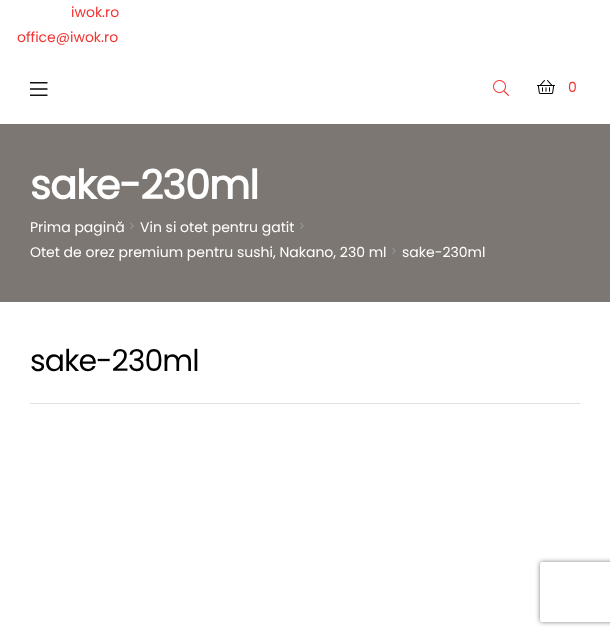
(async () => {
  const canvas = document.querySelector("canvas");
  canvas.width = 610;
  canvas.height = 636;
  const ctx = canvas.getContext("2d");
  ctx.miterLimit = 4;
  ctx.fontKerning = "normal";
  async function loadImage(src) {
    const img = new Image();
    img.src = src;
    await img.decode();
    return img;
  }
  let path;

  ctx.fillStyle = "#ffffff";
  ctx.fillRect(0, 0, 610, 636);
  ctx.drawImage(await loadImage("img/1.png"), 30, 82, 18, 14);
  ctx.drawImage(await loadImage("img/2.png"), 493, 80, 16, 16);
  ctx.drawImage(await loadImage("img/3.png"), 537, 80, 18, 14);
  ctx.fillStyle = "#7c7772";
  ctx.fillRect(0, 124, 610, 178);
  ctx.drawImage(await loadImage("img/4.png"), 130, 223, 4, 6);
  ctx.drawImage(await loadImage("img/4.png"), 300, 223, 4, 6);
  ctx.drawImage(await loadImage("img/4.png"), 392, 248, 4, 6);
  ctx.fillStyle = "#e0e0e0";
  ctx.fillRect(30, 403, 550, 1);
  ctx.save();
  path = new Path2D("M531 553H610V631H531ZM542 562H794C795 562 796 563 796 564V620C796 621 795 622 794 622H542C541 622 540 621 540 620V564C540 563 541 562 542 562Z");
  ctx.clip(path, "evenodd");
  ctx.fillStyle = "#808080";
  ctx.filter = "blur(2.5px)";
  ctx.beginPath();
  ctx.roundRect(540, 562, 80, 60, 2);
  ctx.fill();
  ctx.filter = "none";
  ctx.restore();
  ctx.font = "14px Poppins";
  ctx.fillStyle = "#f23534";
  for (const [text, x, y] of [
    ["iwok.ro", 71, 17],
    ["office@iwok.ro", 17, 42],
    ["0", 568, 92],
  ]) {
    ctx.fillText(text, x, y);
  }
  ctx.letterSpacing = "-1px";
  ctx.font = "bold 40px Poppins";
  ctx.fillStyle = "#ffffff";
  ctx.fillText("sake-230ml", 30, 199);
  ctx.letterSpacing = "0px";
  ctx.font = "14px Poppins";
  for (const [text, x, y] of [
    ["Prima pagină", 30, 232],
    ["Vin si otet pentru gatit", 140, 232],
    ["Otet de orez premium pentru sushi, Nakano, 230 ml", 30, 257],
    ["sake-230ml", 402, 257],
  ]) {
    ctx.fillText(text, x, y);
  }
  ctx.letterSpacing = "-1px";
  ctx.font = "30px Poppins";
  ctx.fillStyle = "#000000";
  ctx.fillText("sake-230ml", 30, 371);
})();
